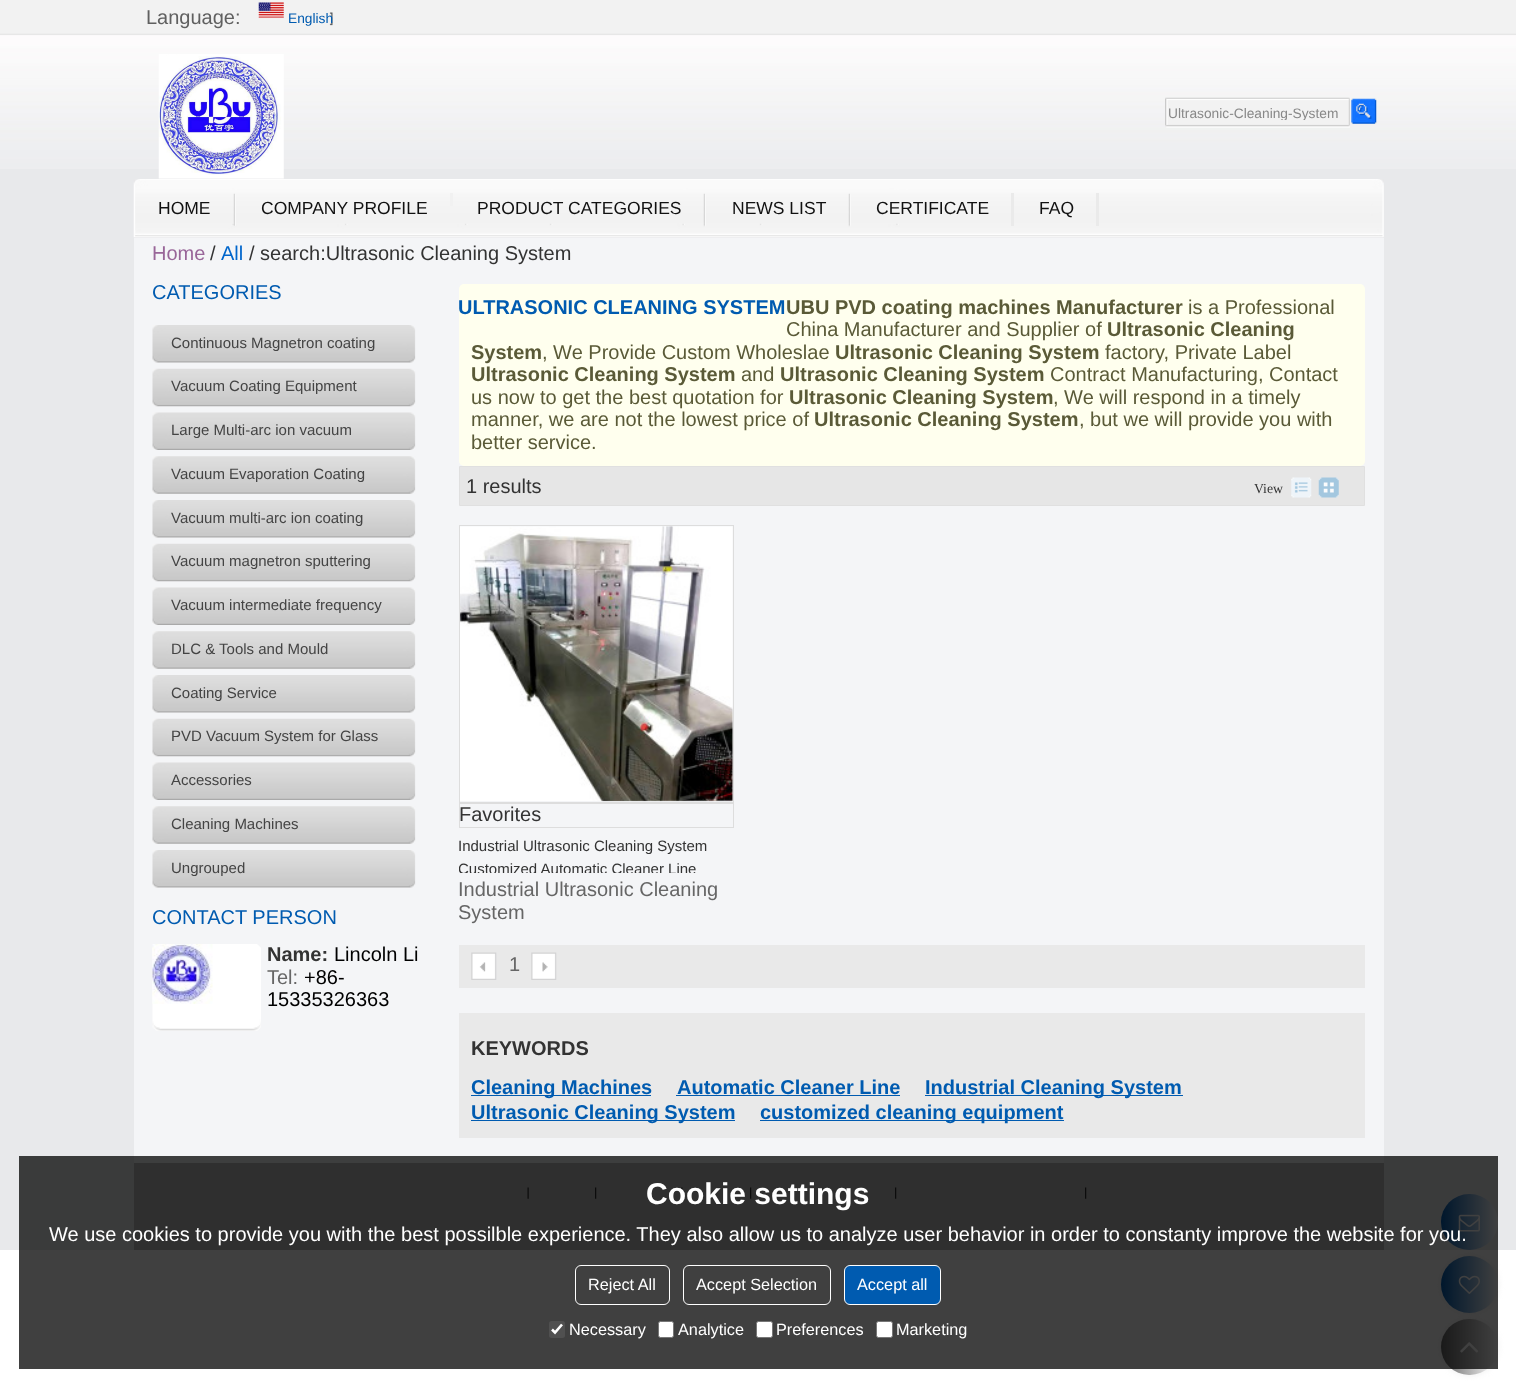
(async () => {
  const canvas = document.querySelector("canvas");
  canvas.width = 1516;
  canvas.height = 1387;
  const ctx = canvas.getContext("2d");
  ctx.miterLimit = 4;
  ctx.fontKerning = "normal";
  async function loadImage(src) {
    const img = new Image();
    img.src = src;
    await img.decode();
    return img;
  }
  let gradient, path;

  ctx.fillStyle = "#ffffff";
  ctx.fillRect(0, 0, 1516, 1387);
  ctx.fillStyle = "#e8e9eb";
  ctx.fillRect(0, 169, 1516, 1081);
  ctx.drawImage(await loadImage("img/1.png"), 0, 0, 1516, 169);
  ctx.drawImage(await loadImage("img/2.png"), 329, 12, 4, 14);
  ctx.drawImage(await loadImage("img/3.png"), 258, 2, 26, 16);
  ctx.drawImage(await loadImage("img/4.png"), 158, 54, 126, 125);
  ctx.drawImage(await loadImage("img/5.png"), 1165, 97, 185, 31);
  ctx.drawImage(await loadImage("img/6.png"), 1351, 98, 26, 26);
  ctx.drawImage(await loadImage("img/7.png"), 133, 179, 1251, 59);
  ctx.drawImage(await loadImage("img/8.png"), 233, 193, 3, 33);
  ctx.fillStyle = "#f1f1f1";
  ctx.fillRect(450, 193, 3, 13);
  ctx.drawImage(await loadImage("img/9.png"), 703, 193, 3, 34);
  ctx.drawImage(await loadImage("img/9.png"), 848, 193, 3, 34);
  for (const [x, y, w, h, color] of [
    [1011, 193, 3, 33, "#eaeaea"],
    [1096, 193, 3, 33, "#eaeaea"],
    [134, 238, 1250, 925, "#f4f5f7"],
  ]) {
    ctx.fillStyle = color;
    ctx.fillRect(x, y, w, h);
  }
  ctx.drawImage(await loadImage("img/10.png"), 152, 325, 264, 38);
  ctx.drawImage(await loadImage("img/11.png"), 152, 368, 264, 39);
  ctx.drawImage(await loadImage("img/12.png"), 152, 412, 264, 38);
  ctx.drawImage(await loadImage("img/13.png"), 152, 456, 264, 38);
  ctx.drawImage(await loadImage("img/10.png"), 152, 500, 264, 38);
  ctx.drawImage(await loadImage("img/11.png"), 152, 543, 264, 39);
  ctx.drawImage(await loadImage("img/14.png"), 152, 587, 264, 38);
  ctx.drawImage(await loadImage("img/13.png"), 152, 631, 264, 38);
  ctx.drawImage(await loadImage("img/10.png"), 152, 675, 264, 38);
  ctx.drawImage(await loadImage("img/11.png"), 152, 718, 264, 39);
  ctx.drawImage(await loadImage("img/12.png"), 152, 762, 264, 38);
  ctx.drawImage(await loadImage("img/13.png"), 152, 806, 264, 38);
  ctx.drawImage(await loadImage("img/10.png"), 152, 850, 264, 38);
  ctx.drawImage(await loadImage("img/15.png"), 152, 944, 109, 87);
  ctx.drawImage(await loadImage("img/16.png"), 152, 944, 61, 60);
  ctx.fillStyle = "#ffffee";
  ctx.beginPath();
  ctx.roundRect(459, 284, 906, 182, 5);
  ctx.fill();
  ctx.fillStyle = "#e6e6e6";
  ctx.beginPath();
  ctx.rect(459.5, 466.5, 905, 39);
  ctx.fill();
  ctx.strokeStyle = "#e0e0e0";
  ctx.stroke();
  ctx.drawImage(await loadImage("img/17.png"), 1291, 477, 21, 21);
  ctx.drawImage(await loadImage("img/18.png"), 1318, 477, 21, 21);
  ctx.strokeStyle = "#dddddd";
  ctx.strokeRect(459.5, 525.5, 274, 277);
  ctx.drawImage(await loadImage("img/19.png"), 460, 526, 273, 276);
  ctx.strokeRect(459.5, 803.5, 274, 24);
  ctx.fillStyle = "#e9e9e9";
  ctx.fillRect(459, 945, 906, 43);
  ctx.drawImage(await loadImage("img/20.png"), 471, 952, 26, 28);
  ctx.drawImage(await loadImage("img/21.png"), 531, 952, 26, 28);
  for (const [x, y, w, h, color] of [
    [459, 1013, 906, 125, "#e9e9e9"],
    [471, 1095, 180, 1, "#005bb0"],
    [676, 1095, 224, 1, "#005bb0"],
    [925, 1095, 258, 1, "#005bb0"],
    [471, 1120, 264, 1, "#005bb0"],
    [760, 1120, 304, 1, "#005bb0"],
    [134, 1163, 1250, 87, "#bababa"],
  ]) {
    ctx.fillStyle = color;
    ctx.fillRect(x, y, w, h);
  }
  ctx.drawImage(await loadImage("img/22.png"), 527, 1187, 2, 12);
  ctx.drawImage(await loadImage("img/23.png"), 595, 1187, 2, 12);
  ctx.drawImage(await loadImage("img/24.png"), 681, 1187, 2, 12);
  ctx.drawImage(await loadImage("img/23.png"), 750, 1187, 2, 12);
  ctx.drawImage(await loadImage("img/23.png"), 895, 1187, 2, 12);
  ctx.drawImage(await loadImage("img/23.png"), 1085, 1187, 2, 12);
  gradient = ctx.createLinearGradient(1441, 1222, 1498, 1222);
  gradient.addColorStop(0, "#005bb0");
  gradient.addColorStop(1, "#ffffff");
  ctx.fillStyle = gradient;
  ctx.beginPath();
  ctx.roundRect(1441, 1194, 57, 56, 28);
  ctx.fill();
  ctx.drawImage(await loadImage("img/25.png"), 1458, 1214, 22, 18);
  ctx.fillStyle = "#eeeeee";
  ctx.filter = "blur(3px)";
  ctx.beginPath();
  ctx.roundRect(1441, 1256, 57, 57, 28.5);
  ctx.fill();
  ctx.filter = "none";
  gradient = ctx.createLinearGradient(1441, 1284, 1498, 1284);
  gradient.addColorStop(0, "#005bb0");
  gradient.addColorStop(1, "#ffffff");
  ctx.fillStyle = gradient;
  ctx.beginPath();
  ctx.arc(1469.5, 1284.5, 28.5, 0, Math.PI * 2);
  ctx.fill();
  ctx.drawImage(await loadImage("img/26.png"), 1458, 1275, 22, 19);
  ctx.fillStyle = "#eeeeee";
  ctx.filter = "blur(3px)";
  ctx.beginPath();
  ctx.roundRect(1441, 1319, 57, 56, 28);
  ctx.fill();
  ctx.filter = "none";
  gradient = ctx.createLinearGradient(1441, 1347, 1498, 1347);
  gradient.addColorStop(0, "#666666");
  gradient.addColorStop(1, "#ffffff");
  ctx.fillStyle = gradient;
  ctx.beginPath();
  ctx.roundRect(1441, 1319, 57, 56, 28);
  ctx.fill();
  ctx.drawImage(await loadImage("img/27.png"), 1460, 1342, 19, 11);
  ctx.fillStyle = "rgba(0, 0, 0, 0.75)";
  ctx.fillRect(19, 1156, 1479, 213);
  ctx.beginPath();
  ctx.roundRect(575.5, 1265.5, 94, 39, 5.5);
  ctx.strokeStyle = "#ffffff";
  ctx.stroke();
  ctx.beginPath();
  ctx.roundRect(683.5, 1265.5, 147, 39, 5.5);
  ctx.stroke();
  ctx.fillStyle = "#005bb0";
  ctx.beginPath();
  ctx.roundRect(844.5, 1265.5, 96, 39, 5.5);
  ctx.fill();
  ctx.stroke();
  ctx.fillStyle = "#505050";
  ctx.beginPath();
  ctx.roundRect(549, 1321, 16, 17, 2.5);
  ctx.fill();
  path = new Path2D("M552 1329.5L555 1332.5L562 1324.5");
  ctx.lineWidth = 2.6;
  ctx.stroke(path);
  ctx.fillStyle = "#ffffff";
  ctx.beginPath();
  ctx.roundRect(658.5, 1321.5, 15, 16, 2);
  ctx.fill();
  ctx.strokeStyle = "#767676";
  ctx.lineWidth = 1;
  ctx.stroke();
  ctx.beginPath();
  ctx.roundRect(756.5, 1321.5, 16, 16, 2);
  ctx.fill();
  ctx.stroke();
  ctx.beginPath();
  ctx.roundRect(876.5, 1321.5, 16, 16, 2);
  ctx.fill();
  ctx.stroke();
  ctx.font = "20px Liberation Sans";
  ctx.fillStyle = "#606060";
  ctx.fillText("Language:", 146, 24);
  ctx.font = "13.75px Liberation Sans";
  ctx.fillStyle = "#005bb0";
  ctx.fillText("English", 288, 23);
  ctx.save();
  ctx.beginPath();
  ctx.rect(1165, 105, 186, 15);
  ctx.clip();
  ctx.fillStyle = "#888888";
  ctx.fillText("Ultrasonic-Cleaning-System", 1168, 118);
  ctx.restore();
  ctx.font = "17.5px Liberation Sans";
  ctx.fillStyle = "#111111";
  for (const [text, x, y] of [
    ["HOME", 158, 214],
    ["COMPANY PROFILE", 261, 214],
    ["PRODUCT CATEGORIES", 477, 214],
    ["NEWS LIST", 732, 214],
    ["CERTIFICATE", 876, 214],
    ["FAQ", 1039, 214],
  ]) {
    ctx.fillText(text, x, y);
  }
  ctx.font = "20px Liberation Sans";
  ctx.fillStyle = "#996699";
  ctx.fillText("Home", 152, 260);
  ctx.fillStyle = "#333333";
  ctx.fillText("/", 210, 260);
  ctx.fillStyle = "#0066cc";
  ctx.fillText("All", 221, 260);
  ctx.fillStyle = "#333333";
  ctx.fillText("/ search:Ultrasonic Cleaning System", 249, 260);
  ctx.fillStyle = "#005bb0";
  ctx.fillText("CATEGORIES", 152, 299);
  ctx.font = "15px Liberation Sans";
  ctx.fillStyle = "#444444";
  for (const [text, x, y] of [
    ["Continuous Magnetron coating", 171, 348],
    ["Vacuum Coating Equipment", 171, 391],
    ["Large Multi-arc ion vacuum", 171, 435],
    ["Vacuum Evaporation Coating", 171, 479],
    ["Vacuum multi-arc ion coating", 171, 523],
    ["Vacuum magnetron sputtering", 171, 566],
    ["Vacuum intermediate frequency", 171, 610],
    ["DLC & Tools and Mould", 171, 654],
    ["Coating Service", 171, 698],
    ["PVD Vacuum System for Glass", 171, 741],
    ["Accessories", 171, 785],
    ["Cleaning Machines", 171, 829],
    ["Ungrouped", 171, 873],
  ]) {
    ctx.fillText(text, x, y);
  }
  ctx.font = "20px Liberation Sans";
  ctx.fillStyle = "#005bb0";
  ctx.fillText("CONTACT PERSON", 152, 924);
  ctx.font = "bold 20px Liberation Sans";
  ctx.fillStyle = "#333333";
  ctx.fillText("Name:", 267, 961);
  ctx.font = "20px Liberation Sans";
  ctx.fillStyle = "#000000";
  ctx.fillText("Lincoln Li", 334, 961);
  ctx.fillStyle = "#666666";
  ctx.fillText("Tel:", 267, 984);
  ctx.fillStyle = "#000000";
  ctx.fillText("+86-", 304, 984);
  ctx.fillText("15335326363", 267, 1006);
  ctx.font = "bold 20px Liberation Sans";
  ctx.fillStyle = "#5a5a37";
  ctx.fillText("UBU PVD coating machines Manufacturer", 786, 314);
  ctx.font = "20px Liberation Sans";
  ctx.fillText("is a Professional", 1188, 314);
  ctx.fillText("China Manufacturer and Supplier of", 786, 336);
  ctx.font = "bold 20px Liberation Sans";
  ctx.fillText("Ultrasonic Cleaning", 1107, 336);
  ctx.fillText("System", 471, 359);
  ctx.font = "20px Liberation Sans";
  ctx.fillText(", We Provide Custom Wholeslae", 542, 359);
  ctx.font = "bold 20px Liberation Sans";
  ctx.fillText("Ultrasonic Cleaning System", 835, 359);
  ctx.font = "20px Liberation Sans";
  ctx.fillText("factory, Private Label", 1105, 359);
  ctx.font = "bold 20px Liberation Sans";
  ctx.fillText("Ultrasonic Cleaning System", 471, 381);
  ctx.font = "20px Liberation Sans";
  ctx.fillText("and", 741, 381);
  ctx.font = "bold 20px Liberation Sans";
  ctx.fillText("Ultrasonic Cleaning System", 780, 381);
  ctx.font = "20px Liberation Sans";
  ctx.fillText("Contract Manufacturing, Contact", 1050, 381);
  ctx.fillText("us now to get the best quotation for", 471, 404);
  ctx.font = "bold 20px Liberation Sans";
  ctx.fillText("Ultrasonic Cleaning System", 789, 404);
  ctx.font = "20px Liberation Sans";
  ctx.fillText(", We will respond in a timely", 1053, 404);
  ctx.fillText("manner, we are not the lowest price of", 471, 426);
  ctx.font = "bold 20px Liberation Sans";
  ctx.fillText("Ultrasonic Cleaning System", 814, 426);
  ctx.font = "20px Liberation Sans";
  ctx.fillText(", but we will provide you with", 1079, 426);
  ctx.fillText("better service.", 471, 449);
  ctx.font = "bold 20px Liberation Sans";
  ctx.fillStyle = "#005bb0";
  ctx.fillText("ULTRASONIC CLEANING SYSTEM", 458, 314);
  ctx.font = "20px Liberation Sans";
  ctx.fillStyle = "#333333";
  ctx.fillText("1 results", 466, 493);
  ctx.font = "13.75px Liberation Serif";
  ctx.fillText("View", 1254, 493);
  ctx.font = "20px Liberation Sans";
  ctx.fillText("Favorites", 459, 821);
  ctx.font = "15px Liberation Sans";
  ctx.fillText("Industrial Ultrasonic Cleaning System", 458, 851);
  ctx.save();
  ctx.beginPath();
  ctx.rect(459, 834, 275, 39);
  ctx.clip();
  ctx.fillText("Customized Automatic Cleaner Line", 458, 874);
  ctx.restore();
  ctx.font = "20px Liberation Sans";
  ctx.fillStyle = "#666666";
  for (const [text, x, y] of [
    ["Industrial Ultrasonic Cleaning", 458, 896],
    ["System", 458, 919],
    ["1", 509, 971],
  ]) {
    ctx.fillText(text, x, y);
  }
  ctx.font = "bold 20px Liberation Sans";
  ctx.fillStyle = "#333333";
  ctx.fillText("KEYWORDS", 471, 1055);
  ctx.fillStyle = "#005bb0";
  for (const [text, x, y] of [
    ["Cleaning Machines", 471, 1094],
    ["Automatic Cleaner Line", 677, 1094],
    ["Industrial Cleaning System", 925, 1094],
    ["Ultrasonic Cleaning System", 471, 1119],
    ["customized cleaning equipment", 760, 1119],
  ]) {
    ctx.fillText(text, x, y);
  }
  ctx.font = "bold 30px Liberation Sans";
  ctx.fillStyle = "#ffffff";
  ctx.fillText("Cookie settings", 646, 1204);
  ctx.font = "20px Liberation Sans";
  ctx.fillText("We use cookies to provide you with the best possilble experience. They also allow us to analyze user behavior in order to constanty improve the website for you.", 49, 1241);
  ctx.font = "16.25px Liberation Sans";
  for (const [text, x, y] of [
    ["Reject All", 588, 1290],
    ["Accept Selection", 696, 1290],
    ["Accept all", 857, 1290],
    ["Necessary", 569, 1335],
    ["Analytice", 678, 1335],
    ["Preferences", 776, 1335],
    ["Marketing", 896, 1335],
  ]) {
    ctx.fillText(text, x, y);
  }
})();
